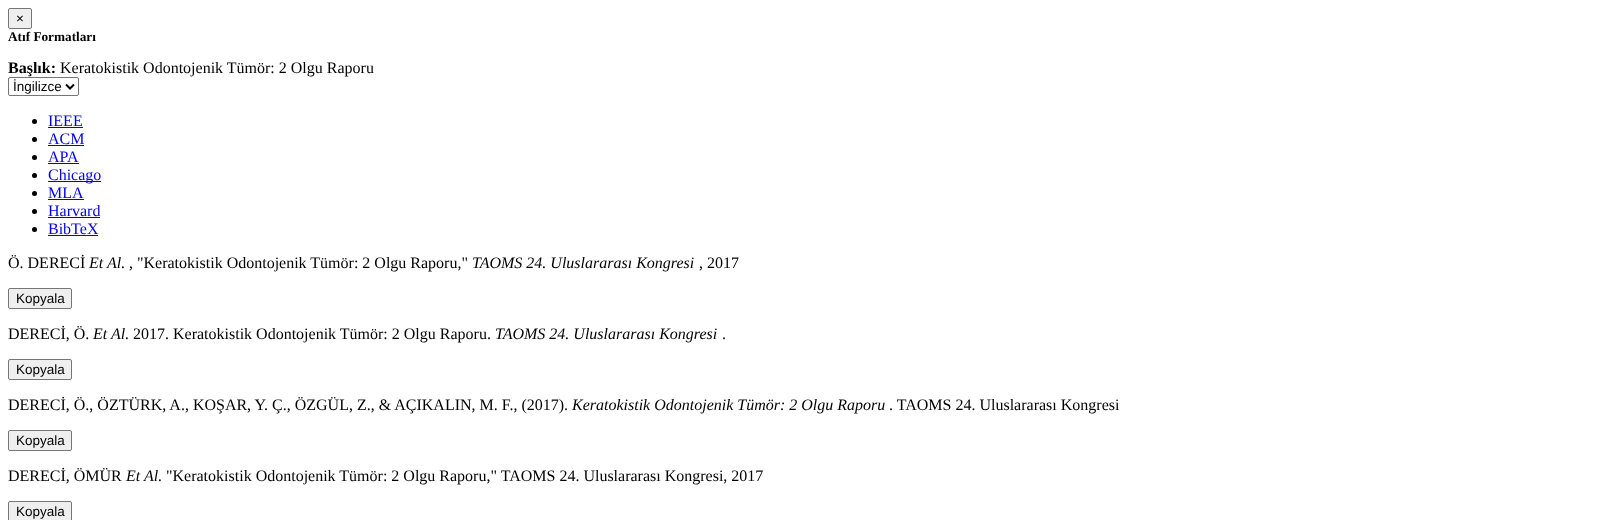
(async () => {
  const canvas = document.querySelector("canvas");
  canvas.width = 1597;
  canvas.height = 520;
  const ctx = canvas.getContext("2d");
  ctx.miterLimit = 4;
  ctx.fontKerning = "normal";
  let path;

  ctx.fillStyle = "#ffffff";
  ctx.fillRect(0, 0, 1597, 520);
  ctx.fillStyle = "#efefef";
  ctx.beginPath();
  ctx.roundRect(8.5, 8.5, 23, 20, 1.5);
  ctx.fill();
  ctx.strokeStyle = "#767676";
  ctx.stroke();
  ctx.beginPath();
  ctx.roundRect(8.5, 77.5, 70, 18, 1.5);
  ctx.stroke();
  path = new Path2D("M66 84.5L70 88.5L74 84.5");
  ctx.strokeStyle = "#000000";
  ctx.lineWidth = 2;
  ctx.stroke(path);
  ctx.fillStyle = "#000000";
  ctx.beginPath();
  ctx.arc(34.5, 121.5, 2.5, 0, Math.PI * 2);
  ctx.fill();
  ctx.fillStyle = "#0000ee";
  ctx.fillRect(48, 127, 35, 1);
  ctx.fillStyle = "#000000";
  ctx.beginPath();
  ctx.arc(34.5, 139.5, 2.5, 0, Math.PI * 2);
  ctx.fill();
  ctx.fillStyle = "#0000ee";
  ctx.fillRect(48, 145, 36, 1);
  ctx.fillStyle = "#000000";
  ctx.beginPath();
  ctx.arc(34.5, 157.5, 2.5, 0, Math.PI * 2);
  ctx.fill();
  ctx.fillStyle = "#0000ee";
  ctx.fillRect(48, 163, 31, 1);
  ctx.fillStyle = "#000000";
  ctx.beginPath();
  ctx.arc(34.5, 175.5, 2.5, 0, Math.PI * 2);
  ctx.fill();
  ctx.fillStyle = "#0000ee";
  ctx.fillRect(48, 181, 53, 1);
  ctx.fillStyle = "#000000";
  ctx.beginPath();
  ctx.arc(34.5, 193.5, 2.5, 0, Math.PI * 2);
  ctx.fill();
  ctx.fillStyle = "#0000ee";
  ctx.fillRect(48, 199, 36, 1);
  ctx.fillStyle = "#000000";
  ctx.beginPath();
  ctx.arc(34.5, 211.5, 2.5, 0, Math.PI * 2);
  ctx.fill();
  ctx.fillStyle = "#0000ee";
  ctx.fillRect(48, 217, 52, 1);
  ctx.fillStyle = "#000000";
  ctx.beginPath();
  ctx.arc(34.5, 229.5, 2.5, 0, Math.PI * 2);
  ctx.fill();
  ctx.fillStyle = "#0000ee";
  ctx.fillRect(48, 235, 50, 1);
  ctx.fillStyle = "#efefef";
  ctx.beginPath();
  ctx.roundRect(8.5, 288.5, 63, 20, 1.5);
  ctx.fill();
  ctx.strokeStyle = "#767676";
  ctx.lineWidth = 1;
  ctx.stroke();
  ctx.beginPath();
  ctx.roundRect(8.5, 359.5, 63, 20, 1.5);
  ctx.fill();
  ctx.stroke();
  ctx.beginPath();
  ctx.roundRect(8.5, 430.5, 63, 20, 1.5);
  ctx.fill();
  ctx.stroke();
  ctx.beginPath();
  ctx.roundRect(8.5, 501.5, 63, 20, 1.5);
  ctx.fill();
  ctx.stroke();
  ctx.font = "13.5px Liberation Sans";
  ctx.fillStyle = "#000000";
  ctx.fillText("×", 16, 23);
  ctx.font = "bold 13.25px Liberation Serif";
  ctx.fillText("Atıf Formatları", 8, 41);
  ctx.font = "bold 16px Liberation Serif";
  ctx.fillText("Başlık:", 8, 73);
  ctx.font = "16px Liberation Serif";
  ctx.fillText("Keratokistik Odontojenik Tümör: 2 Olgu Raporu", 60, 73);
  ctx.font = "13.5px Liberation Sans";
  ctx.fillText("İngilizce", 13, 91);
  ctx.font = "16px Liberation Serif";
  ctx.fillStyle = "#0000ee";
  for (const [text, x, y] of [
    ["IEEE", 48, 126],
    ["ACM", 48, 144],
    ["APA", 48, 162],
    ["Chicago", 48, 180],
    ["MLA", 48, 198],
    ["Harvard", 48, 216],
    ["BibTeX", 48, 234],
  ]) {
    ctx.fillText(text, x, y);
  }
  ctx.fillStyle = "#000000";
  ctx.fillText("Ö. DERECİ", 8, 268);
  ctx.font = "italic 16px Liberation Serif";
  ctx.fillText("Et Al.", 89, 268);
  ctx.font = "16px Liberation Serif";
  ctx.fillText(", \"Keratokistik Odontojenik Tümör: 2 Olgu Raporu,\"", 129, 268);
  ctx.font = "italic 16px Liberation Serif";
  ctx.fillText("TAOMS 24. Uluslararası Kongresi", 472, 268);
  ctx.font = "16px Liberation Serif";
  ctx.fillText(", 2017", 699, 268);
  ctx.font = "13.5px Liberation Sans";
  ctx.fillText("Kopyala", 16, 303);
  ctx.font = "16px Liberation Serif";
  ctx.fillText("DERECİ, Ö.", 8, 339);
  ctx.font = "italic 16px Liberation Serif";
  ctx.fillText("Et Al.", 93, 339);
  ctx.font = "16px Liberation Serif";
  ctx.fillText("2017. Keratokistik Odontojenik Tümör: 2 Olgu Raporu.", 133, 339);
  ctx.font = "italic 16px Liberation Serif";
  ctx.fillText("TAOMS 24. Uluslararası Kongresi", 495, 339);
  ctx.font = "16px Liberation Serif";
  ctx.fillText(".", 722, 339);
  ctx.font = "13.5px Liberation Sans";
  ctx.fillText("Kopyala", 16, 374);
  ctx.font = "16px Liberation Serif";
  ctx.fillText("DERECİ, Ö., ÖZTÜRK, A., KOŞAR, Y. Ç., ÖZGÜL, Z., & AÇIKALIN, M. F., (2017).", 8, 410);
  ctx.font = "italic 16px Liberation Serif";
  ctx.fillText("Keratokistik Odontojenik Tümör: 2 Olgu Raporu", 572, 410);
  ctx.font = "16px Liberation Serif";
  ctx.fillText(". TAOMS 24. Uluslararası Kongresi", 889, 410);
  ctx.font = "13.5px Liberation Sans";
  ctx.fillText("Kopyala", 16, 445);
  ctx.font = "16px Liberation Serif";
  ctx.fillText("DERECİ, ÖMÜR", 8, 481);
  ctx.font = "italic 16px Liberation Serif";
  ctx.fillText("Et Al.", 126, 481);
  ctx.font = "16px Liberation Serif";
  ctx.fillText("\"Keratokistik Odontojenik Tümör: 2 Olgu Raporu,\" TAOMS 24. Uluslararası Kongresi, 2017", 166, 481);
  ctx.font = "13.5px Liberation Sans";
  ctx.fillText("Kopyala", 16, 516);
})();
